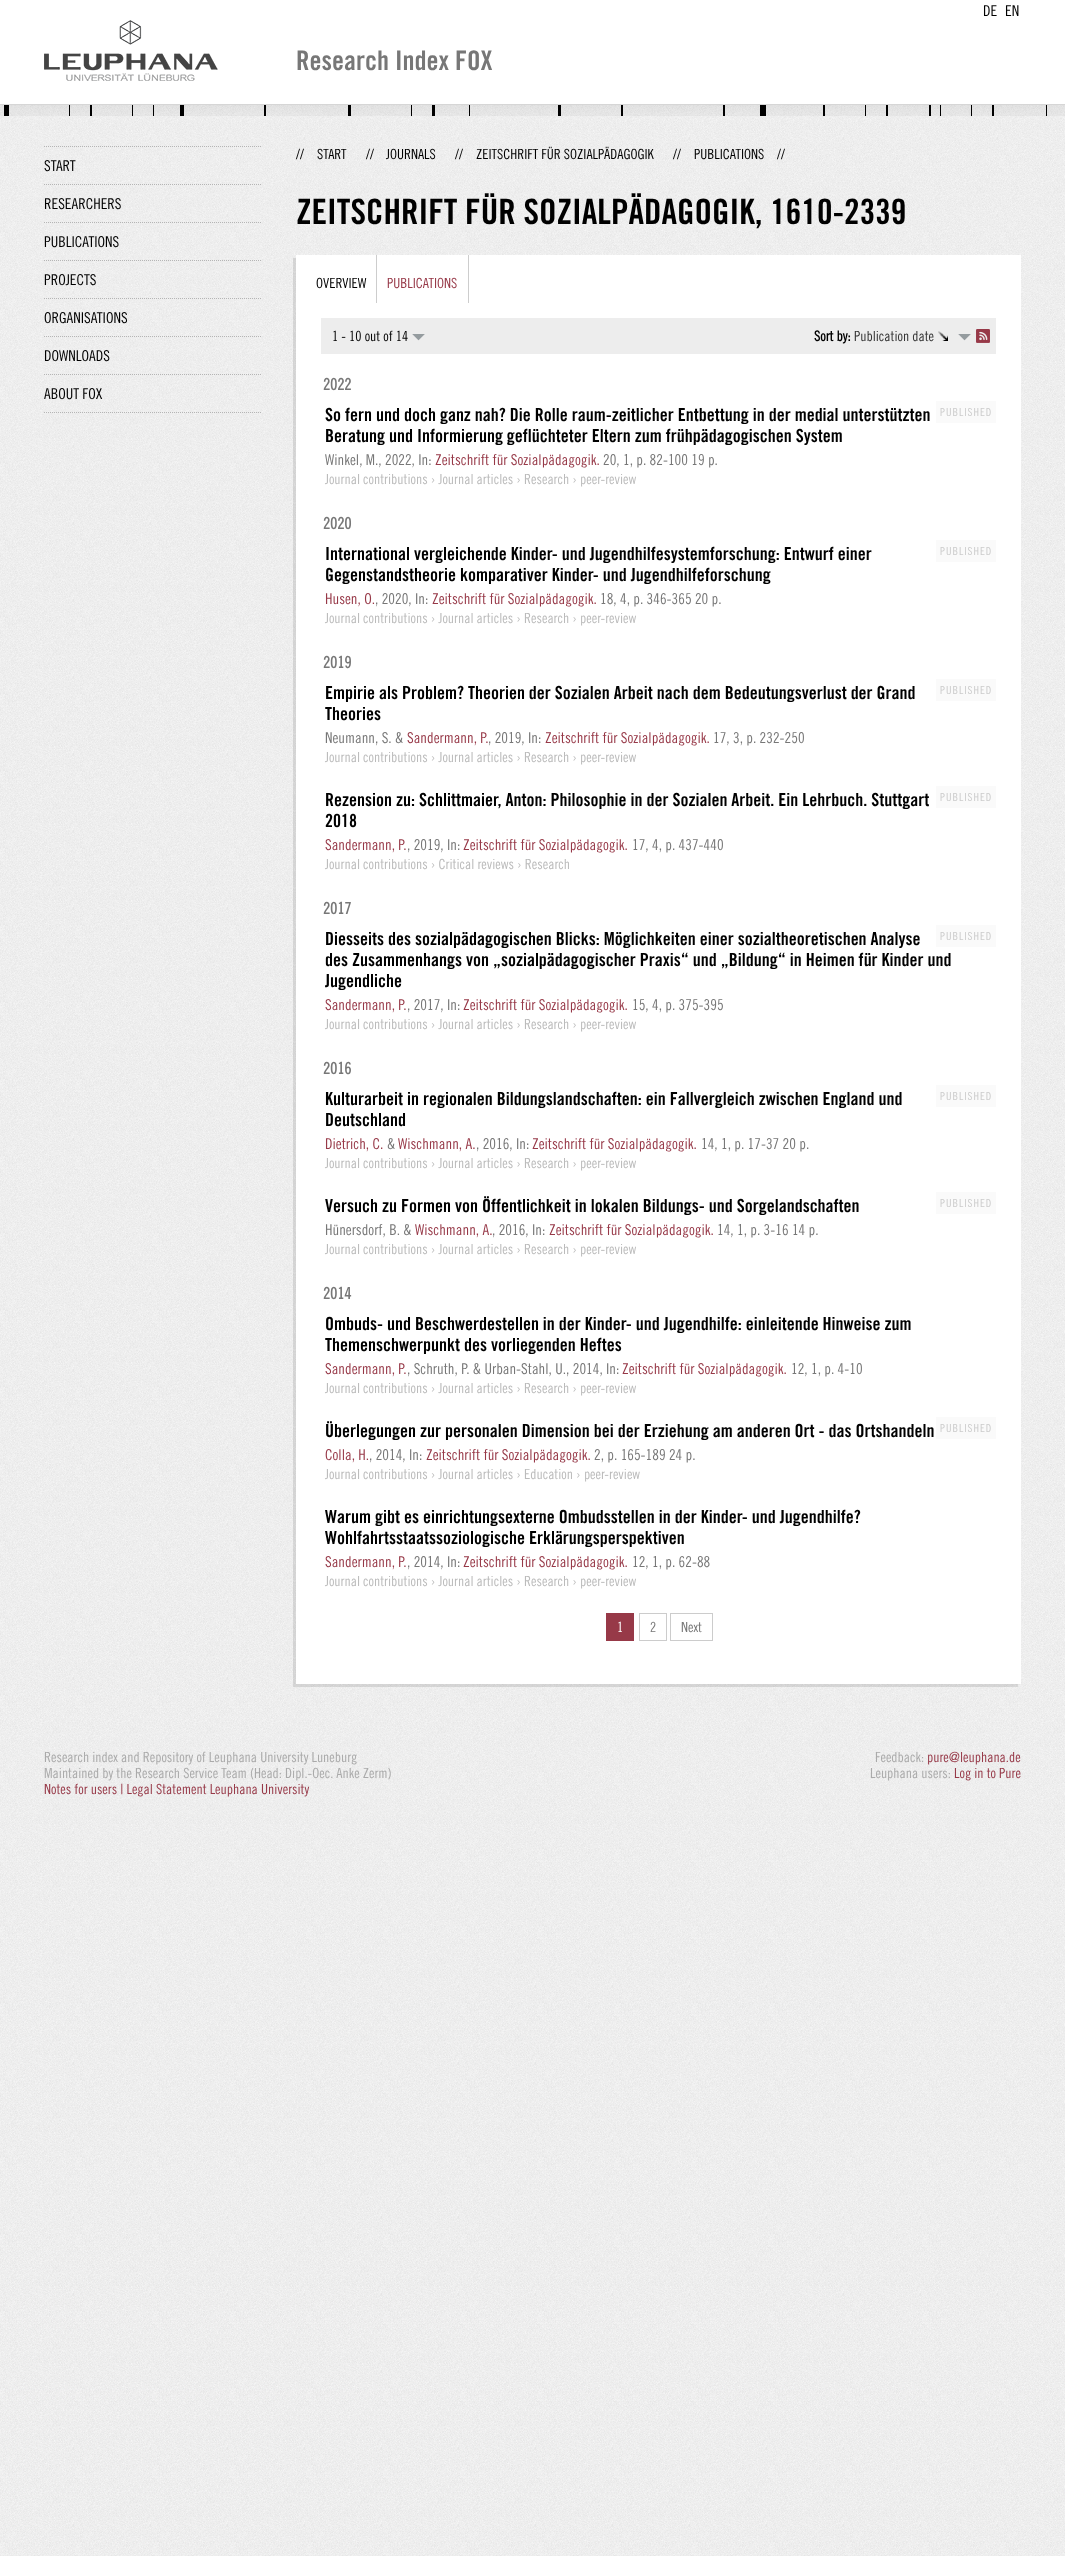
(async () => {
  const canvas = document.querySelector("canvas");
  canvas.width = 1065;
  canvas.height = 2556;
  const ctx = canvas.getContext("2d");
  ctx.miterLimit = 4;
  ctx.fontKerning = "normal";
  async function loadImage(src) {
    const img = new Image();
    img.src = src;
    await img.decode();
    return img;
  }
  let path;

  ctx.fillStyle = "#ffffff";
  ctx.fillRect(0, 0, 1065, 2556);
  ctx.drawImage(await loadImage("img/1.png"), 0, 116, 1065, 2440);
  ctx.fillStyle = "#d6d6d6";
  ctx.fillRect(0, 104, 1065, 1);
  ctx.drawImage(await loadImage("img/2.png"), 44, 20, 174, 61);
  ctx.drawImage(await loadImage("img/3.png"), 0, 105, 1065, 11);
  path = new Path2D("M44 412.5H261");
  ctx.strokeStyle = "#b5b5b5";
  ctx.setLineDash([1, 1]);
  ctx.stroke(path);
  path = new Path2D("M44 146.5H261");
  ctx.stroke(path);
  path = new Path2D("M44 184.5H261");
  ctx.stroke(path);
  path = new Path2D("M44 222.5H261");
  ctx.stroke(path);
  path = new Path2D("M44 260.5H261");
  ctx.stroke(path);
  path = new Path2D("M44 298.5H261");
  ctx.stroke(path);
  path = new Path2D("M44 336.5H261");
  ctx.stroke(path);
  path = new Path2D("M44 374.5H261");
  ctx.stroke(path);
  ctx.fillStyle = "rgba(0, 0, 0, 0.1)";
  path = new Path2D("M293 258V1687H1018V1684H296V258Z");
  ctx.fill(path);
  for (const [x, y, w, h, color] of [
    [296, 255, 725, 1429, "#ffffff"],
    [376, 255, 1, 48, "#cdcdcd"],
    [468, 255, 1, 48, "#cdcdcd"],
    [321, 318, 675, 36, "#ededed"],
  ]) {
    ctx.fillStyle = color;
    ctx.fillRect(x, y, w, h);
  }
  ctx.drawImage(await loadImage("img/4.png"), 412, 334, 13, 7);
  ctx.drawImage(await loadImage("img/4.png"), 958, 334, 13, 7);
  ctx.drawImage(await loadImage("img/5.png"), 938, 331, 10, 10);
  ctx.drawImage(await loadImage("img/6.png"), 976, 329, 14, 14);
  for (const [x, y, w, h, color] of [
    [936, 401, 60, 22, "#fafafa"],
    [936, 540, 60, 22, "#fafafa"],
    [936, 679, 60, 22, "#fafafa"],
    [936, 786, 60, 22, "#fafafa"],
    [936, 925, 60, 22, "#fafafa"],
    [936, 1085, 60, 22, "#fafafa"],
    [936, 1192, 60, 22, "#fafafa"],
    [936, 1417, 60, 22, "#fafafa"],
    [606, 1613, 28, 28, "#973948"],
  ]) {
    ctx.fillStyle = color;
    ctx.fillRect(x, y, w, h);
  }
  ctx.strokeStyle = "#cccccc";
  ctx.setLineDash([]);
  ctx.strokeRect(639.5, 1613.5, 27, 27);
  ctx.strokeRect(670.5, 1613.5, 42, 27);
  ctx.font = "15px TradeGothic";
  ctx.fillStyle = "#000000";
  ctx.fillText("DE", 983, 16);
  ctx.fillText("EN", 1005, 16);
  ctx.font = "bold 27px 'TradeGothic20'";
  ctx.fillStyle = "#777777";
  ctx.fillText("Research Index FOX", 296, 70);
  ctx.font = "15px TradeGothic";
  ctx.fillStyle = "#000000";
  for (const [text, x, y] of [
    ["START", 44, 171],
    ["RESEARCHERS", 44, 209],
    ["PUBLICATIONS", 44, 247],
    ["PROJECTS", 44, 285],
    ["ORGANISATIONS", 44, 323],
    ["DOWNLOADS", 44, 361],
    ["ABOUT FOX", 44, 399],
  ]) {
    ctx.fillText(text, x, y);
  }
  ctx.font = "14px TradeGothic";
  for (const [text, x, y] of [
    ["//", 296, 159],
    ["START", 317, 159],
    ["//", 366, 159],
    ["JOURNALS", 386, 159],
    ["//", 455, 159],
    ["ZEITSCHRIFT FÜR SOZIALPÄDAGOGIK", 476, 159],
    ["//", 673, 159],
    ["PUBLICATIONS", 694, 159],
    ["//", 777, 159],
  ]) {
    ctx.fillText(text, x, y);
  }
  ctx.font = "bold 35px 'TradeGothic20'";
  ctx.fillText("ZEITSCHRIFT FÜR SOZIALPÄDAGOGIK, 1610-2339", 296, 224);
  ctx.font = "14px TradeGothic";
  ctx.fillText("OVERVIEW", 316, 288);
  ctx.fillStyle = "#973948";
  ctx.fillText("PUBLICATIONS", 387, 288);
  ctx.fillStyle = "#000000";
  ctx.fillText("1 - 10 out of 14", 332, 341);
  ctx.font = "bold 14px TradeGothic";
  ctx.fillText("Sort by:", 814, 341);
  ctx.font = "14px TradeGothic";
  ctx.fillStyle = "#333333";
  ctx.fillText("Publication date", 854, 341);
  ctx.font = "bold 16px TradeGothic";
  ctx.fillStyle = "#777777";
  ctx.fillText("2022", 323, 390);
  ctx.font = "bold 18px 'TradeGothic20'";
  ctx.fillStyle = "#000000";
  ctx.fillText("So fern und doch ganz nah? Die Rolle raum-zeitlicher Entbettung in der medial unterstützten", 325, 421);
  ctx.fillText("Beratung und Informierung geflüchteter Eltern zum frühpädagogischen System", 325, 442);
  ctx.font = "15px TradeGothic";
  ctx.fillStyle = "#777777";
  ctx.fillText("Winkel, M., 2022, In:", 325, 465);
  ctx.fillStyle = "#973948";
  ctx.fillText("Zeitschrift für Sozialpädagogik.", 435, 465);
  ctx.fillStyle = "#777777";
  ctx.fillText("20, 1, p. 82-100 19 p.", 603, 465);
  ctx.font = "14px TradeGothic";
  ctx.fillStyle = "#bbbbbb";
  ctx.fillText("Journal contributions › Journal articles › Research › peer-review", 325, 484);
  ctx.letterSpacing = "1px";
  ctx.font = "11px TradeGothic";
  ctx.fillStyle = "#cccccc";
  ctx.fillText("PUBLISHED", 940, 416);
  ctx.letterSpacing = "0px";
  ctx.font = "bold 16px TradeGothic";
  ctx.fillStyle = "#777777";
  ctx.fillText("2020", 323, 529);
  ctx.font = "bold 18px 'TradeGothic20'";
  ctx.fillStyle = "#000000";
  ctx.fillText("International vergleichende Kinder- und Jugendhilfesystemforschung: Entwurf einer", 325, 560);
  ctx.fillText("Gegenstandstheorie komparativer Kinder- und Jugendhilfeforschung", 325, 581);
  ctx.font = "15px TradeGothic";
  ctx.fillStyle = "#973948";
  ctx.fillText("Husen, O.", 325, 604);
  ctx.fillStyle = "#777777";
  ctx.fillText(", 2020, In:", 375, 604);
  ctx.fillStyle = "#973948";
  ctx.fillText("Zeitschrift für Sozialpädagogik.", 432, 604);
  ctx.fillStyle = "#777777";
  ctx.fillText("18, 4, p. 346-365 20 p.", 600, 604);
  ctx.font = "14px TradeGothic";
  ctx.fillStyle = "#bbbbbb";
  ctx.fillText("Journal contributions › Journal articles › Research › peer-review", 325, 623);
  ctx.letterSpacing = "1px";
  ctx.font = "11px TradeGothic";
  ctx.fillStyle = "#cccccc";
  ctx.fillText("PUBLISHED", 940, 555);
  ctx.letterSpacing = "0px";
  ctx.font = "bold 16px TradeGothic";
  ctx.fillStyle = "#777777";
  ctx.fillText("2019", 323, 668);
  ctx.font = "bold 18px 'TradeGothic20'";
  ctx.fillStyle = "#000000";
  ctx.fillText("Empirie als Problem? Theorien der Sozialen Arbeit nach dem Bedeutungsverlust der Grand", 325, 699);
  ctx.fillText("Theories", 325, 720);
  ctx.font = "15px TradeGothic";
  ctx.fillStyle = "#777777";
  ctx.fillText("Neumann, S. &", 325, 743);
  ctx.fillStyle = "#973948";
  ctx.fillText("Sandermann, P.", 407, 743);
  ctx.fillStyle = "#777777";
  ctx.fillText(", 2019, In:", 488, 743);
  ctx.fillStyle = "#973948";
  ctx.fillText("Zeitschrift für Sozialpädagogik.", 545, 743);
  ctx.fillStyle = "#777777";
  ctx.fillText("17, 3, p. 232-250", 713, 743);
  ctx.font = "14px TradeGothic";
  ctx.fillStyle = "#bbbbbb";
  ctx.fillText("Journal contributions › Journal articles › Research › peer-review", 325, 762);
  ctx.letterSpacing = "1px";
  ctx.font = "11px TradeGothic";
  ctx.fillStyle = "#cccccc";
  ctx.fillText("PUBLISHED", 940, 694);
  ctx.letterSpacing = "0px";
  ctx.font = "bold 18px 'TradeGothic20'";
  ctx.fillStyle = "#000000";
  ctx.fillText("Rezension zu: Schlittmaier, Anton: Philosophie in der Sozialen Arbeit. Ein Lehrbuch. Stuttgart", 325, 806);
  ctx.fillText("2018", 325, 827);
  ctx.font = "15px TradeGothic";
  ctx.fillStyle = "#973948";
  ctx.fillText("Sandermann, P.", 325, 850);
  ctx.fillStyle = "#777777";
  ctx.fillText(", 2019, In:", 407, 850);
  ctx.fillStyle = "#973948";
  ctx.fillText("Zeitschrift für Sozialpädagogik.", 463, 850);
  ctx.fillStyle = "#777777";
  ctx.fillText("17, 4, p. 437-440", 632, 850);
  ctx.font = "14px TradeGothic";
  ctx.fillStyle = "#bbbbbb";
  ctx.fillText("Journal contributions › Critical reviews › Research", 325, 869);
  ctx.letterSpacing = "1px";
  ctx.font = "11px TradeGothic";
  ctx.fillStyle = "#cccccc";
  ctx.fillText("PUBLISHED", 940, 801);
  ctx.letterSpacing = "0px";
  ctx.font = "bold 16px TradeGothic";
  ctx.fillStyle = "#777777";
  ctx.fillText("2017", 323, 914);
  ctx.font = "bold 18px 'TradeGothic20'";
  ctx.fillStyle = "#000000";
  for (const [text, x, y] of [
    ["Diesseits des sozialpädagogischen Blicks: Möglichkeiten einer sozialtheoretischen Analyse", 325, 945],
    ["des Zusammenhangs von „sozialpädagogischer Praxis“ und „Bildung“ in Heimen für Kinder und", 325, 966],
    ["Jugendliche", 325, 987],
  ]) {
    ctx.fillText(text, x, y);
  }
  ctx.font = "15px TradeGothic";
  ctx.fillStyle = "#973948";
  ctx.fillText("Sandermann, P.", 325, 1010);
  ctx.fillStyle = "#777777";
  ctx.fillText(", 2017, In:", 407, 1010);
  ctx.fillStyle = "#973948";
  ctx.fillText("Zeitschrift für Sozialpädagogik.", 463, 1010);
  ctx.fillStyle = "#777777";
  ctx.fillText("15, 4, p. 375-395", 632, 1010);
  ctx.font = "14px TradeGothic";
  ctx.fillStyle = "#bbbbbb";
  ctx.fillText("Journal contributions › Journal articles › Research › peer-review", 325, 1029);
  ctx.letterSpacing = "1px";
  ctx.font = "11px TradeGothic";
  ctx.fillStyle = "#cccccc";
  ctx.fillText("PUBLISHED", 940, 940);
  ctx.letterSpacing = "0px";
  ctx.font = "bold 16px TradeGothic";
  ctx.fillStyle = "#777777";
  ctx.fillText("2016", 323, 1074);
  ctx.font = "bold 18px 'TradeGothic20'";
  ctx.fillStyle = "#000000";
  ctx.fillText("Kulturarbeit in regionalen Bildungslandschaften: ein Fallvergleich zwischen England und", 325, 1105);
  ctx.fillText("Deutschland", 325, 1126);
  ctx.font = "15px TradeGothic";
  ctx.fillStyle = "#973948";
  ctx.fillText("Dietrich, C.", 325, 1149);
  ctx.fillStyle = "#777777";
  ctx.fillText("&", 387, 1149);
  ctx.fillStyle = "#973948";
  ctx.fillText("Wischmann, A.", 398, 1149);
  ctx.fillStyle = "#777777";
  ctx.fillText(", 2016, In:", 476, 1149);
  ctx.fillStyle = "#973948";
  ctx.fillText("Zeitschrift für Sozialpädagogik.", 532, 1149);
  ctx.fillStyle = "#777777";
  ctx.fillText("14, 1, p. 17-37 20 p.", 701, 1149);
  ctx.font = "14px TradeGothic";
  ctx.fillStyle = "#bbbbbb";
  ctx.fillText("Journal contributions › Journal articles › Research › peer-review", 325, 1168);
  ctx.letterSpacing = "1px";
  ctx.font = "11px TradeGothic";
  ctx.fillStyle = "#cccccc";
  ctx.fillText("PUBLISHED", 940, 1100);
  ctx.letterSpacing = "0px";
  ctx.font = "bold 18px 'TradeGothic20'";
  ctx.fillStyle = "#000000";
  ctx.fillText("Versuch zu Formen von Öffentlichkeit in lokalen Bildungs- und Sorgelandschaften", 325, 1212);
  ctx.font = "15px TradeGothic";
  ctx.fillStyle = "#777777";
  ctx.fillText("Hünersdorf, B. &", 325, 1235);
  ctx.fillStyle = "#973948";
  ctx.fillText("Wischmann, A.", 415, 1235);
  ctx.fillStyle = "#777777";
  ctx.fillText(", 2016, In:", 492, 1235);
  ctx.fillStyle = "#973948";
  ctx.fillText("Zeitschrift für Sozialpädagogik.", 549, 1235);
  ctx.fillStyle = "#777777";
  ctx.fillText("14, 1, p. 3-16 14 p.", 717, 1235);
  ctx.font = "14px TradeGothic";
  ctx.fillStyle = "#bbbbbb";
  ctx.fillText("Journal contributions › Journal articles › Research › peer-review", 325, 1254);
  ctx.letterSpacing = "1px";
  ctx.font = "11px TradeGothic";
  ctx.fillStyle = "#cccccc";
  ctx.fillText("PUBLISHED", 940, 1207);
  ctx.letterSpacing = "0px";
  ctx.font = "bold 16px TradeGothic";
  ctx.fillStyle = "#777777";
  ctx.fillText("2014", 323, 1299);
  ctx.font = "bold 18px 'TradeGothic20'";
  ctx.fillStyle = "#000000";
  ctx.fillText("Ombuds- und Beschwerdestellen in der Kinder- und Jugendhilfe: einleitende Hinweise zum", 325, 1330);
  ctx.fillText("Themenschwerpunkt des vorliegenden Heftes", 325, 1351);
  ctx.font = "15px TradeGothic";
  ctx.fillStyle = "#973948";
  ctx.fillText("Sandermann, P.", 325, 1374);
  ctx.fillStyle = "#777777";
  ctx.fillText(", Schruth, P. & Urban-Stahl, U., 2014, In:", 407, 1374);
  ctx.fillStyle = "#973948";
  ctx.fillText("Zeitschrift für Sozialpädagogik.", 622, 1374);
  ctx.fillStyle = "#777777";
  ctx.fillText("12, 1, p. 4-10", 791, 1374);
  ctx.font = "14px TradeGothic";
  ctx.fillStyle = "#bbbbbb";
  ctx.fillText("Journal contributions › Journal articles › Research › peer-review", 325, 1393);
  ctx.font = "bold 18px 'TradeGothic20'";
  ctx.fillStyle = "#000000";
  ctx.fillText("Überlegungen zur personalen Dimension bei der Erziehung am anderen Ort - das Ortshandeln", 325, 1437);
  ctx.font = "15px TradeGothic";
  ctx.fillStyle = "#973948";
  ctx.fillText("Colla, H.", 325, 1460);
  ctx.fillStyle = "#777777";
  ctx.fillText(", 2014, In:", 369, 1460);
  ctx.fillStyle = "#973948";
  ctx.fillText("Zeitschrift für Sozialpädagogik.", 426, 1460);
  ctx.fillStyle = "#777777";
  ctx.fillText("2, p. 165-189 24 p.", 594, 1460);
  ctx.font = "14px TradeGothic";
  ctx.fillStyle = "#bbbbbb";
  ctx.fillText("Journal contributions › Journal articles › Education › peer-review", 325, 1479);
  ctx.letterSpacing = "1px";
  ctx.font = "11px TradeGothic";
  ctx.fillStyle = "#cccccc";
  ctx.fillText("PUBLISHED", 940, 1432);
  ctx.letterSpacing = "0px";
  ctx.font = "bold 18px 'TradeGothic20'";
  ctx.fillStyle = "#000000";
  ctx.fillText("Warum gibt es einrichtungsexterne Ombudsstellen in der Kinder- und Jugendhilfe?", 325, 1523);
  ctx.fillText("Wohlfahrtsstaatssoziologische Erklärungsperspektiven", 325, 1544);
  ctx.font = "15px TradeGothic";
  ctx.fillStyle = "#973948";
  ctx.fillText("Sandermann, P.", 325, 1567);
  ctx.fillStyle = "#777777";
  ctx.fillText(", 2014, In:", 407, 1567);
  ctx.fillStyle = "#973948";
  ctx.fillText("Zeitschrift für Sozialpädagogik.", 463, 1567);
  ctx.fillStyle = "#777777";
  ctx.fillText("12, 1, p. 62-88", 632, 1567);
  ctx.font = "14px TradeGothic";
  ctx.fillStyle = "#bbbbbb";
  ctx.fillText("Journal contributions › Journal articles › Research › peer-review", 325, 1586);
  ctx.fillStyle = "#ffffff";
  ctx.fillText("1", 617, 1632);
  ctx.fillStyle = "#777777";
  ctx.fillText("2", 650, 1632);
  ctx.fillText("Next", 681, 1632);
  ctx.fillStyle = "#aaaaaa";
  ctx.fillText("Research index and Repository of Leuphana University Luneburg", 44, 1762);
  ctx.fillText("Maintained by the Research Service Team (Head: Dipl.-Oec. Anke Zerm)", 44, 1778);
  ctx.fillStyle = "#973948";
  ctx.fillText("Notes for users | Legal Statement Leuphana University", 44, 1794);
  ctx.fillStyle = "#aaaaaa";
  ctx.fillText("Feedback:", 875, 1762);
  ctx.fillStyle = "#973948";
  ctx.fillText("pure@leuphana.de", 927, 1762);
  ctx.fillStyle = "#aaaaaa";
  ctx.fillText("Leuphana users:", 870, 1778);
  ctx.fillStyle = "#973948";
  ctx.fillText("Log in to Pure", 954, 1778);
})();
